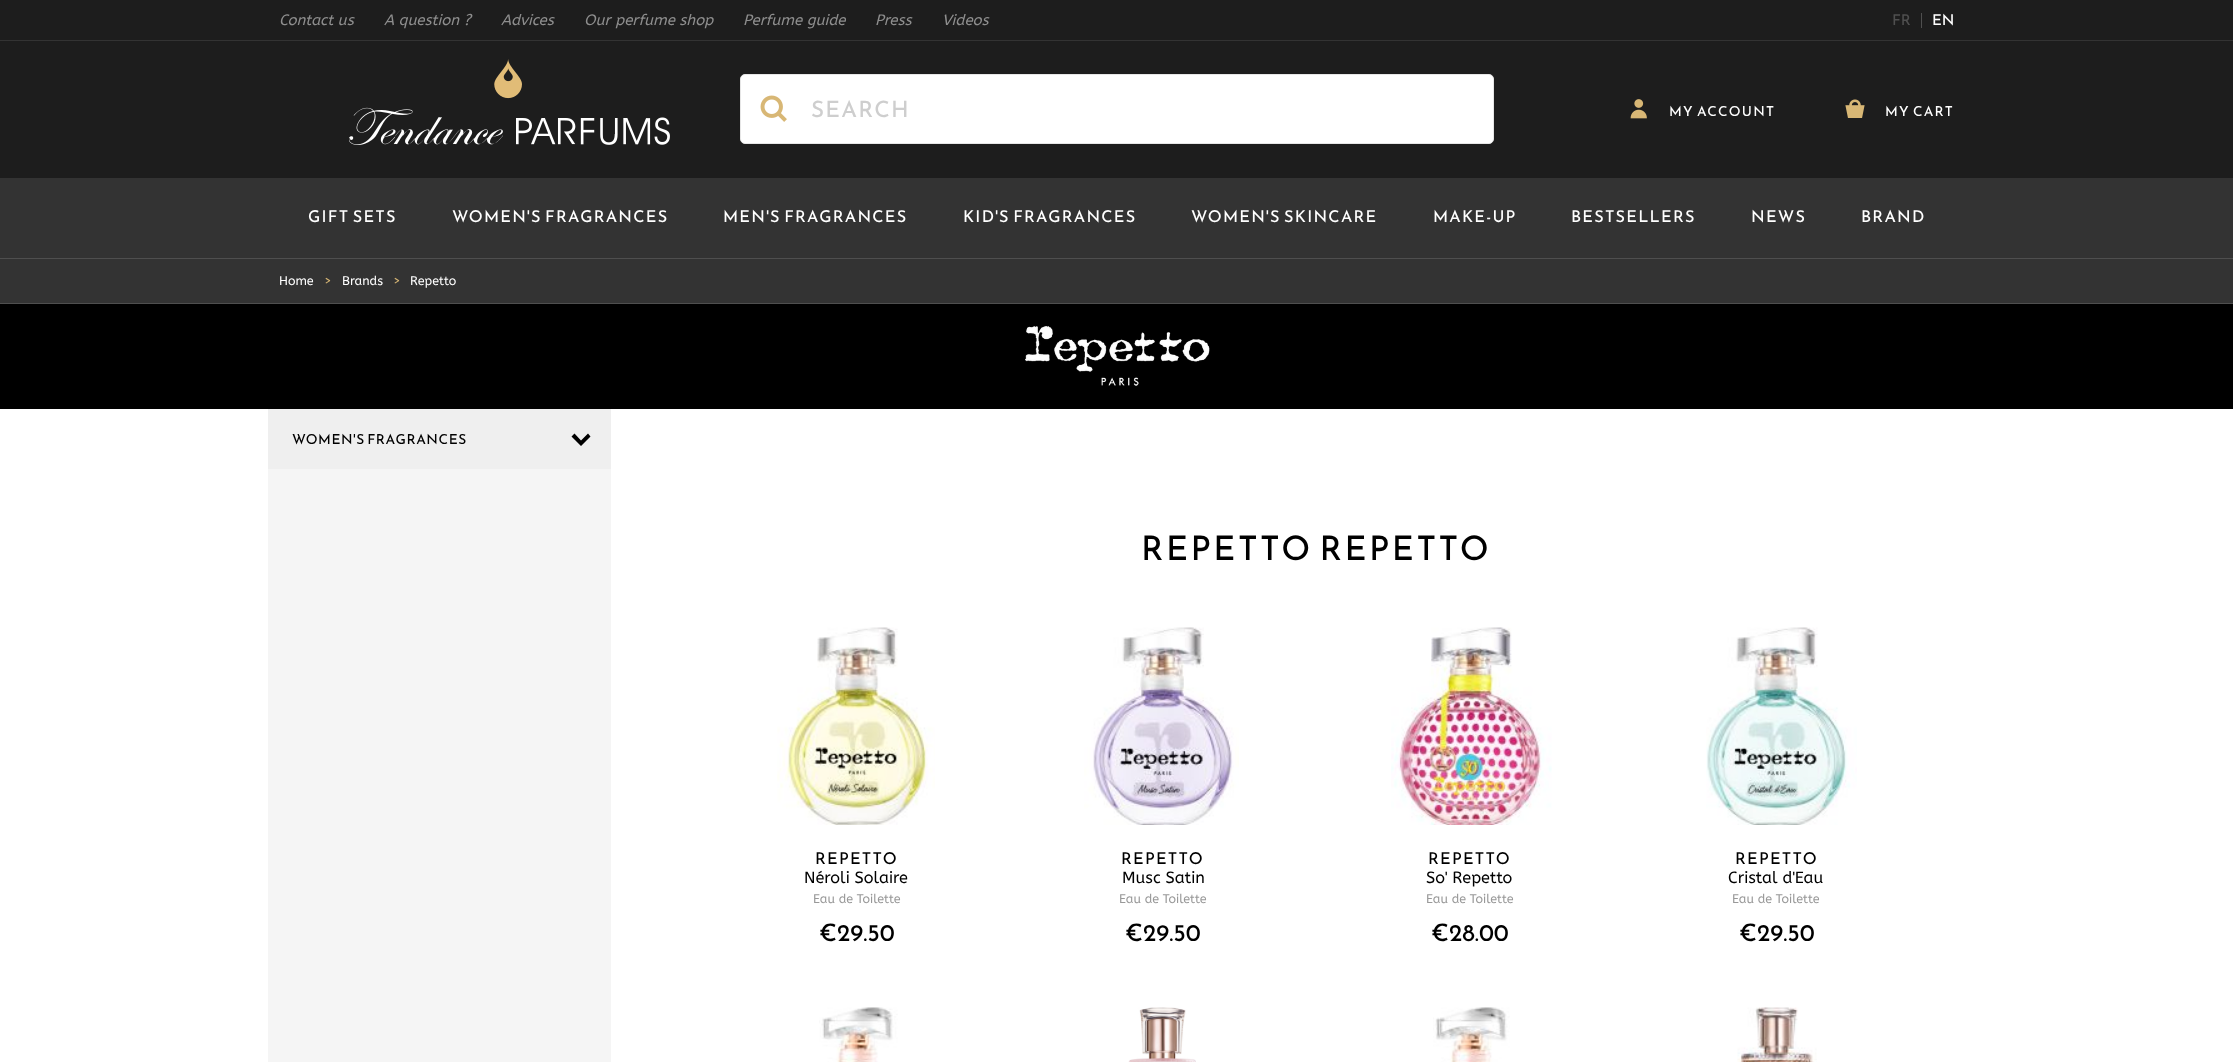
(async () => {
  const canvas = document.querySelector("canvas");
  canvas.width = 2233;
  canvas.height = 1062;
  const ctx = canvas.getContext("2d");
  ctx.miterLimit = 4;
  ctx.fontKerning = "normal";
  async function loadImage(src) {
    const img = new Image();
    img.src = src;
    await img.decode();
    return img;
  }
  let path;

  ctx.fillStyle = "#ffffff";
  ctx.fillRect(0, 0, 2233, 1062);
  for (const [x, y, w, h, color] of [
    [0, 0, 2233, 178, "#1d1d1d"],
    [0, 40, 2233, 1, "#333333"],
    [1921, 13, 1, 15, "#4f4f4f"],
  ]) {
    ctx.fillStyle = color;
    ctx.fillRect(x, y, w, h);
  }
  ctx.drawImage(await loadImage("img/1.png"), 349, 59, 321, 86);
  ctx.fillStyle = "#ffffff";
  ctx.beginPath();
  ctx.roundRect(740.5, 74.5, 753, 69, 4.5);
  ctx.fill();
  ctx.strokeStyle = "#e6e6e6";
  ctx.stroke();
  ctx.drawImage(await loadImage("img/2.png"), 760, 95, 27, 27);
  ctx.drawImage(await loadImage("img/3.png"), 1630, 99, 17, 20);
  ctx.drawImage(await loadImage("img/4.png"), 1845, 99, 20, 19);
  for (const [x, y, w, h, color] of [
    [0, 178, 2233, 80, "#333333"],
    [0, 259, 2233, 44, "#333333"],
    [0, 258, 2233, 1, "#4f4f4f"],
    [0, 303, 2233, 1, "#4f4f4f"],
    [0, 304, 2233, 105, "#000000"],
  ]) {
    ctx.fillStyle = color;
    ctx.fillRect(x, y, w, h);
  }
  ctx.drawImage(await loadImage("img/5.png"), 1025, 326, 185, 60);
  ctx.fillStyle = "#f5f5f5";
  ctx.fillRect(268, 469, 343, 593);
  ctx.fillStyle = "#efefef";
  ctx.fillRect(268, 409, 343, 60);
  ctx.fillStyle = "#000000";
  path = new Path2D("M581 446L571.5 436.5L574.5 433.5L581 440.5L588 433.5L590.5 436.5Z");
  ctx.fill(path, "evenodd");
  ctx.drawImage(await loadImage("img/6.png"), 777, 627, 158, 198);
  ctx.drawImage(await loadImage("img/7.png"), 1084, 627, 155, 198);
  ctx.drawImage(await loadImage("img/8.png"), 1391, 627, 161, 198);
  ctx.drawImage(await loadImage("img/9.png"), 1706, 627, 151, 198);
  ctx.drawImage(await loadImage("img/10.png"), 819, 1007, 79, 55);
  ctx.drawImage(await loadImage("img/11.png"), 1128, 1007, 68, 55);
  ctx.drawImage(await loadImage("img/12.png"), 1433, 1007, 77, 55);
  ctx.drawImage(await loadImage("img/13.png"), 1737, 1007, 80, 55);
  ctx.font = "italic 15px ABeeZee";
  ctx.fillStyle = "#8e8e8e";
  for (const [text, x, y] of [
    ["Contact us", 279, 25],
    ["A question ?", 384, 25],
    ["Advices", 501, 25],
    ["Our perfume shop", 584, 25],
    ["Perfume guide", 743, 25],
    ["Press", 875, 25],
    ["Videos", 942, 25],
  ]) {
    ctx.fillText(text, x, y);
  }
  ctx.font = "15px Reem Kufi";
  ctx.fillStyle = "#4f4f4f";
  ctx.fillText("FR", 1892, 25);
  ctx.fillStyle = "#ffffff";
  ctx.fillText("EN", 1932, 25);
  ctx.letterSpacing = "1.25px";
  ctx.font = "22.5px Reem Kufi";
  ctx.fillStyle = "#cecece";
  ctx.fillText("SEARCH", 811, 117);
  ctx.font = "13.75px Reem Kufi";
  ctx.fillStyle = "#ffffff";
  ctx.fillText("MY ACCOUNT", 1669, 116);
  ctx.fillText("MY CART", 1885, 116);
  ctx.font = "16.25px Reem Kufi";
  for (const [text, x, y] of [
    ["GIFT SETS", 308, 222],
    ["WOMEN'S FRAGRANCES", 452, 222],
    ["MEN'S FRAGRANCES", 723, 222],
    ["KID'S FRAGRANCES", 963, 222],
    ["WOMEN'S SKINCARE", 1191, 222],
    ["MAKE-UP", 1433, 222],
    ["BESTSELLERS", 1571, 222],
    ["NEWS", 1751, 222],
    ["BRAND", 1861, 222],
  ]) {
    ctx.fillText(text, x, y);
  }
  ctx.letterSpacing = "0px";
  ctx.font = "12.5px ABeeZee";
  ctx.fillText("Home", 279, 285);
  ctx.fillStyle = "#d8b775";
  ctx.fillText(">", 324, 285);
  ctx.fillStyle = "#ffffff";
  ctx.fillText("Brands", 342, 285);
  ctx.fillStyle = "#d8b775";
  ctx.fillText(">", 393, 285);
  ctx.fillStyle = "#ffffff";
  ctx.fillText("Repetto", 410, 285);
  ctx.letterSpacing = "0.6px";
  ctx.font = "13.75px Reem Kufi";
  ctx.fillStyle = "#000000";
  ctx.fillText("WOMEN'S FRAGRANCES", 292, 444);
  ctx.letterSpacing = "2.5px";
  ctx.font = "33.75px Reem Kufi";
  ctx.fillText("REPETTO REPETTO", 1141, 560);
  ctx.letterSpacing = "1.25px";
  ctx.font = "16.25px Reem Kufi";
  ctx.fillText("REPETTO", 815, 864);
  ctx.letterSpacing = "0px";
  ctx.font = "16.25px ABeeZee";
  ctx.fillText("Néroli Solaire", 804, 883);
  ctx.font = "12.5px ABeeZee";
  ctx.fillStyle = "#999999";
  ctx.fillText("Eau de Toilette", 813, 903);
  ctx.font = "24px Reem Kufi";
  ctx.fillStyle = "#000000";
  ctx.fillText("€29.50", 819, 941);
  ctx.letterSpacing = "1.25px";
  ctx.font = "16.25px Reem Kufi";
  ctx.fillText("REPETTO", 1121, 864);
  ctx.letterSpacing = "0px";
  ctx.font = "16.25px ABeeZee";
  ctx.fillText("Musc Satin", 1122, 883);
  ctx.font = "12.5px ABeeZee";
  ctx.fillStyle = "#999999";
  ctx.fillText("Eau de Toilette", 1119, 903);
  ctx.font = "24px Reem Kufi";
  ctx.fillStyle = "#000000";
  ctx.fillText("€29.50", 1125, 941);
  ctx.letterSpacing = "1.25px";
  ctx.font = "16.25px Reem Kufi";
  ctx.fillText("REPETTO", 1428, 864);
  ctx.letterSpacing = "0px";
  ctx.font = "16.25px ABeeZee";
  ctx.fillText("So' Repetto", 1426, 883);
  ctx.font = "12.5px ABeeZee";
  ctx.fillStyle = "#999999";
  ctx.fillText("Eau de Toilette", 1426, 903);
  ctx.font = "24px Reem Kufi";
  ctx.fillStyle = "#000000";
  ctx.fillText("€28.00", 1431, 941);
  ctx.letterSpacing = "1.25px";
  ctx.font = "16.25px Reem Kufi";
  ctx.fillText("REPETTO", 1735, 864);
  ctx.letterSpacing = "0px";
  ctx.font = "16.25px ABeeZee";
  ctx.fillText("Cristal d'Eau", 1728, 883);
  ctx.font = "12.5px ABeeZee";
  ctx.fillStyle = "#999999";
  ctx.fillText("Eau de Toilette", 1732, 903);
  ctx.font = "24px Reem Kufi";
  ctx.fillStyle = "#000000";
  ctx.fillText("€29.50", 1739, 941);
})();
